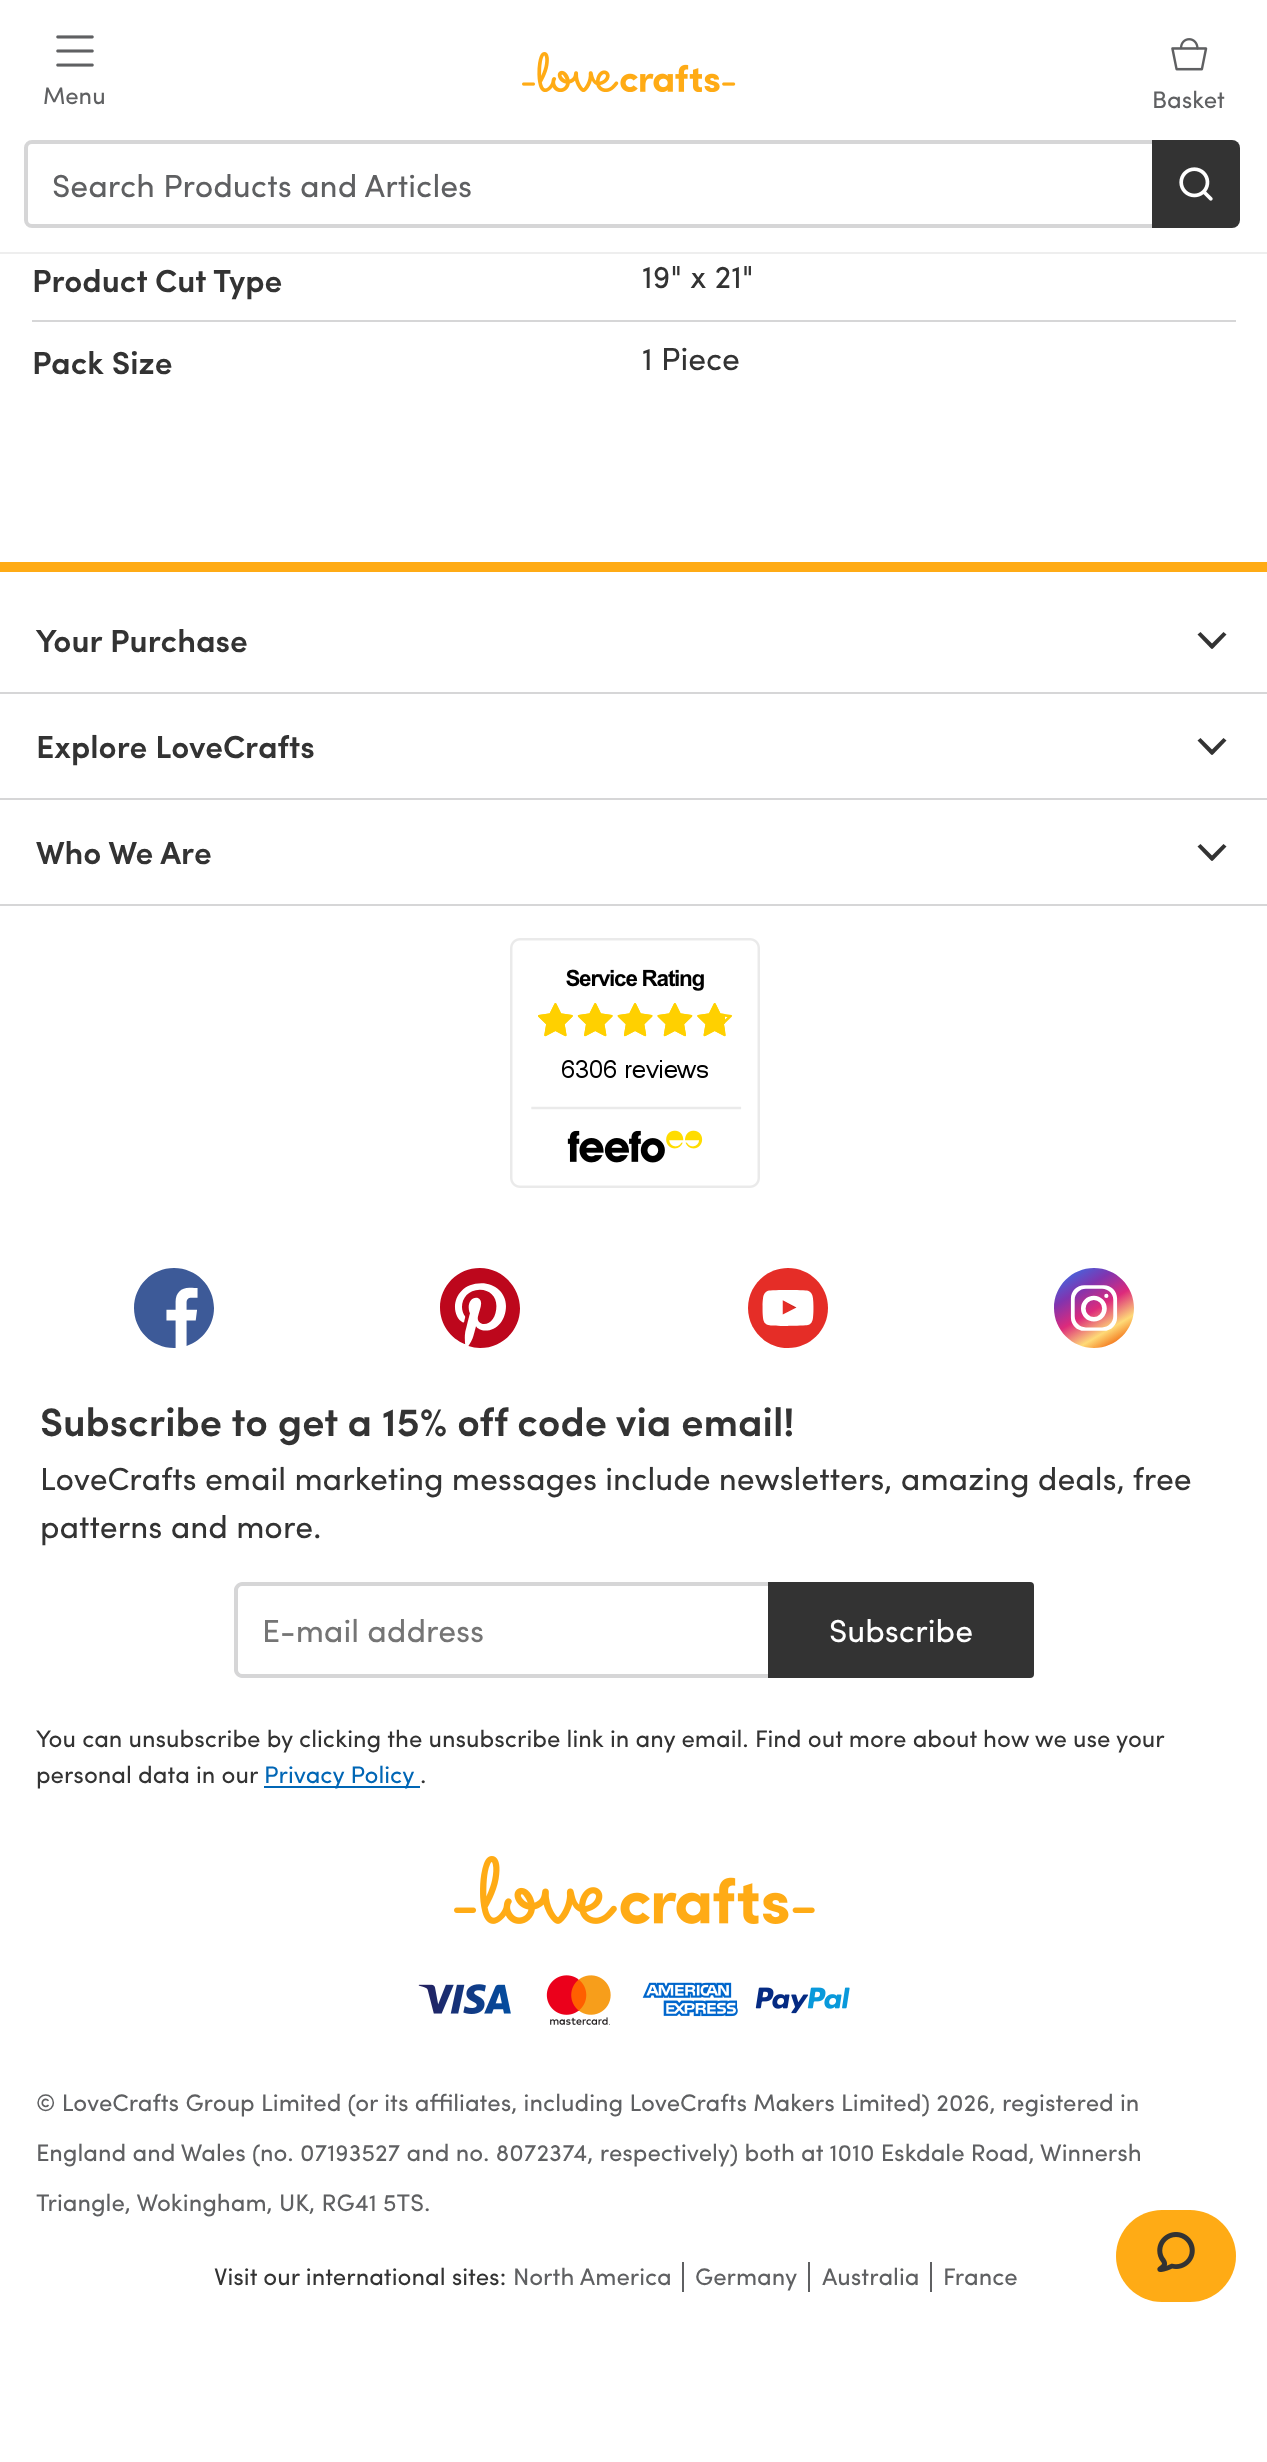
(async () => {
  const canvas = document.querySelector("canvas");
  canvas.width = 1267;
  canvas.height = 2462;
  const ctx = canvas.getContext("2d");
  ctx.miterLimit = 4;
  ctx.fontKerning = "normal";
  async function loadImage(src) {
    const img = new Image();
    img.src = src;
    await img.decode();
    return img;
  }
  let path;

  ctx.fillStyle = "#ffffff";
  ctx.fillRect(0, 0, 1267, 2462);
  ctx.fillStyle = "#eeeeee";
  ctx.fillRect(0, 252, 1267, 2);
  ctx.drawImage(await loadImage("img/1.png"), 522, 52, 214, 40);
  ctx.drawImage(await loadImage("img/2.png"), 56, 35, 38, 32);
  ctx.drawImage(await loadImage("img/3.png"), 1171, 38, 37, 33);
  ctx.beginPath();
  ctx.roundRect(26, 142, 1128, 84, [6, 0, 0, 6]);
  ctx.strokeStyle = "#d6d6d7";
  ctx.lineWidth = 4;
  ctx.stroke();
  ctx.fillStyle = "#333333";
  ctx.beginPath();
  ctx.roundRect(1152, 140, 88, 88, [0, 8, 8, 0]);
  ctx.fill();
  ctx.drawImage(await loadImage("img/4.png"), 1179, 167, 34, 34);
  for (const [x, y, w, h, color] of [
    [32, 320, 1204, 2, "#d6d6d7"],
    [0, 562, 1267, 10, "#ffab15"],
    [0, 692, 1267, 2, "#d6d6d7"],
  ]) {
    ctx.fillStyle = color;
    ctx.fillRect(x, y, w, h);
  }
  ctx.fillStyle = "#333333";
  path = new Path2D("M1200.5 632L1214.5 646L1211.5 649L1197.5 634.5Z");
  ctx.fill(path);
  path = new Path2D("M1209.5 646L1223.5 632L1226.5 634.5L1212.5 649Z");
  ctx.fill(path);
  ctx.fillStyle = "#d6d6d7";
  ctx.fillRect(0, 798, 1267, 2);
  ctx.fillStyle = "#333333";
  path = new Path2D("M1200.5 738L1214.5 752L1211.5 755L1197.5 740.5Z");
  ctx.fill(path);
  path = new Path2D("M1209.5 752L1223.5 738L1226.5 740.5L1212.5 755Z");
  ctx.fill(path);
  ctx.fillStyle = "#d6d6d7";
  ctx.fillRect(0, 904, 1267, 2);
  ctx.fillStyle = "#333333";
  path = new Path2D("M1200.5 844L1214.5 858L1211.5 861L1197.5 846.5Z");
  ctx.fill(path);
  path = new Path2D("M1209.5 858L1223.5 844L1226.5 846.5L1212.5 861Z");
  ctx.fill(path);
  ctx.drawImage(await loadImage("img/5.png"), 510, 938, 250, 250);
  ctx.drawImage(await loadImage("img/6.png"), 134, 1268, 80, 80);
  ctx.drawImage(await loadImage("img/7.png"), 440, 1268, 80, 80);
  ctx.drawImage(await loadImage("img/8.png"), 748, 1268, 80, 80);
  ctx.drawImage(await loadImage("img/9.png"), 1054, 1268, 80, 80);
  ctx.fillStyle = "#d6d6d7";
  path = new Path2D("M242 1582H768V1678H242C238 1678 234 1674 234 1670V1590C234 1586 238 1582 242 1582ZM242 1586H768V1674H242C240 1674 238 1672 238 1670V1590C238 1588 240 1586 242 1586Z");
  ctx.fill(path, "evenodd");
  ctx.fillStyle = "#333333";
  ctx.beginPath();
  ctx.roundRect(768, 1582, 266, 96, [0, 4, 4, 0]);
  ctx.fill();
  ctx.fillStyle = "#0066b5";
  ctx.fillRect(264, 1786, 156, 2);
  ctx.drawImage(await loadImage("img/10.png"), 454, 1856, 361, 68);
  ctx.drawImage(await loadImage("img/11.png"), 418, 1984, 93, 30);
  ctx.drawImage(await loadImage("img/12.png"), 546, 1975, 65, 50);
  ctx.drawImage(await loadImage("img/13.png"), 642, 1982, 96, 35);
  ctx.drawImage(await loadImage("img/14.png"), 755, 1987, 95, 27);
  for (const [x, y, w, h, color] of [
    [682, 2262, 2, 30, "#5f6062"],
    [808, 2262, 2, 30, "#5f6062"],
    [930, 2262, 2, 30, "#5f6062"],
  ]) {
    ctx.fillStyle = color;
    ctx.fillRect(x, y, w, h);
  }
  ctx.fillStyle = "#ffab15";
  ctx.beginPath();
  ctx.roundRect(1116, 2210, 120, 92, 46);
  ctx.fill();
  ctx.drawImage(await loadImage("img/15.png"), 1157, 2232, 38, 40);
  ctx.font = "24px 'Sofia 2'";
  ctx.fillStyle = "#5f6062";
  ctx.fillText("Menu", 43, 104);
  ctx.fillText("Basket", 1152, 108);
  ctx.font = "32px 'Sofia 2'";
  ctx.fillText("Search Products and Articles", 52, 197);
  ctx.font = "32px Sofia";
  ctx.fillStyle = "#333333";
  ctx.fillText("Product Cut Type", 32, 292);
  ctx.font = "32px 'Sofia 2'";
  ctx.fillText("19\" x 21\"", 642, 288);
  ctx.font = "32px Sofia";
  ctx.fillText("Pack Size", 32, 374);
  ctx.font = "32px 'Sofia 2'";
  ctx.fillText("1 Piece", 642, 370);
  ctx.font = "32px Sofia";
  for (const [text, x, y] of [
    ["Your Purchase", 36, 652],
    ["Explore LoveCrafts", 36, 758],
    ["Who We Are", 36, 864],
  ]) {
    ctx.fillText(text, x, y);
  }
  ctx.font = "40px Sofia";
  ctx.fillText("Subscribe to get a 15% off code via email!", 40, 1436);
  ctx.font = "32px 'Sofia 2'";
  ctx.fillText("LoveCrafts email marketing messages include newsletters, amazing deals, free", 40, 1490);
  ctx.fillText("patterns and more.", 40, 1538);
  ctx.fillStyle = "#757575";
  ctx.fillText("E-mail address", 262, 1642);
  ctx.fillStyle = "#ffffff";
  ctx.fillText("Subscribe", 829, 1642);
  ctx.font = "24px 'Sofia 2'";
  ctx.fillStyle = "#333333";
  ctx.fillText("You can unsubscribe by clicking the unsubscribe link in any email. Find out more about how we use your", 36, 1747);
  ctx.fillText("personal data in our", 36, 1783);
  ctx.fillStyle = "#0066b5";
  ctx.fillText("Privacy Policy", 264, 1783);
  ctx.fillStyle = "#333333";
  ctx.fillText(".", 420, 1783);
  ctx.fillStyle = "#5f6062";
  for (const [text, x, y] of [
    ["© LoveCrafts Group Limited (or its affiliates, including LoveCrafts Makers Limited) 2026, registered in", 36, 2111],
    ["England and Wales (no. 07193527 and no. 8072374, respectively) both at 1010 Eskdale Road, Winnersh", 36, 2161],
    ["Triangle, Wokingham, UK, RG41 5TS.", 36, 2211],
  ]) {
    ctx.fillText(text, x, y);
  }
  ctx.fillStyle = "#333333";
  ctx.fillText("Visit our international sites:", 214, 2285);
  ctx.fillStyle = "#5f6062";
  for (const [text, x, y] of [
    ["North America", 513, 2285],
    ["Germany", 695, 2285],
    ["Australia", 822, 2285],
    ["France", 943, 2285],
  ]) {
    ctx.fillText(text, x, y);
  }
})();
